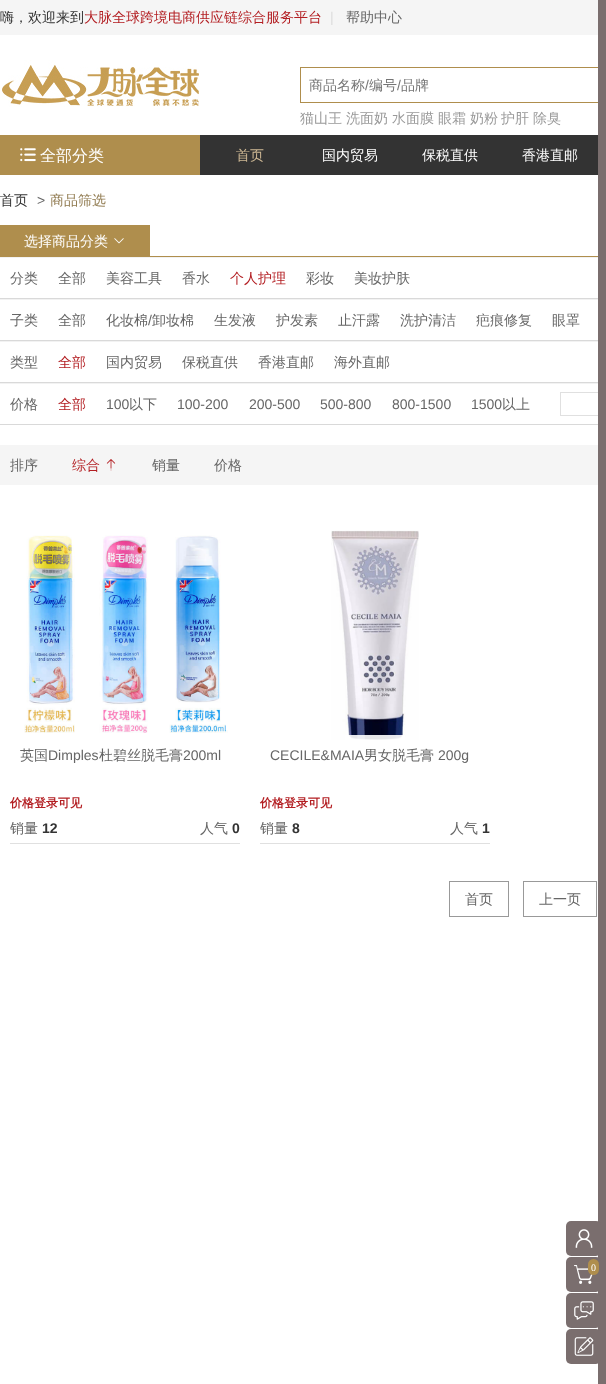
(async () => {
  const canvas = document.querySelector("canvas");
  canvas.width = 606;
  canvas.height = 1384;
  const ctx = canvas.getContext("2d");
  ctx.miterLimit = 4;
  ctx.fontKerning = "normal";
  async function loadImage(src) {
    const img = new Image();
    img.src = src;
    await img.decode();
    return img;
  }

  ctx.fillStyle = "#ffffff";
  ctx.fillRect(0, 0, 606, 1384);
  ctx.fillStyle = "#f5f5f5";
  ctx.fillRect(0, 0, 598, 35);
  ctx.drawImage(await loadImage("img/1.png"), 2, 60, 197, 47);
  ctx.strokeStyle = "#af8e4d";
  ctx.strokeRect(300.5, 67.5, 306, 35);
  ctx.fillStyle = "#333333";
  ctx.fillRect(200, 135, 398, 40);
  ctx.fillStyle = "#af8e4d";
  ctx.fillRect(0, 135, 200, 40);
  ctx.drawImage(await loadImage("img/2.png"), 20, 148, 16, 14);
  ctx.fillRect(150, 256, 456, 1);
  ctx.fillRect(0, 225, 150, 32);
  ctx.drawImage(await loadImage("img/3.png"), 114, 238, 10, 6);
  for (const [x, y, w, h, color] of [
    [0, 257, 606, 1, "#f2f2f2"],
    [0, 298, 606, 1, "#d9d9d9"],
    [0, 299, 606, 1, "#f2f2f2"],
    [0, 340, 606, 1, "#d9d9d9"],
    [0, 341, 606, 1, "#f2f2f2"],
    [0, 382, 606, 1, "#d9d9d9"],
    [0, 383, 606, 1, "#f2f2f2"],
    [0, 424, 606, 1, "#d9d9d9"],
  ]) {
    ctx.fillStyle = color;
    ctx.fillRect(x, y, w, h);
  }
  ctx.strokeStyle = "#e0e0e0";
  ctx.strokeRect(560.5, 392.5, 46, 23);
  ctx.fillStyle = "#f5f5f5";
  ctx.fillRect(0, 445, 598, 40);
  ctx.drawImage(await loadImage("img/4.png"), 106, 459, 10, 12);
  ctx.drawImage(await loadImage("img/5.png"), 24, 535, 204, 198);
  ctx.fillStyle = "#e0e0e0";
  ctx.fillRect(10, 843, 230, 1);
  ctx.drawImage(await loadImage("img/6.png"), 331, 530, 88, 210);
  ctx.fillStyle = "rgba(255, 255, 255, 0.9)";
  ctx.fillRect(345, 735, 60, 5);
  ctx.fillStyle = "#e0e0e0";
  ctx.fillRect(260, 843, 230, 1);
  ctx.strokeStyle = "#999999";
  ctx.strokeRect(449.5, 881.5, 59, 35);
  ctx.strokeRect(523.5, 881.5, 73, 35);
  ctx.fillStyle = "#7a6e6e";
  ctx.fillRect(598, 0, 8, 1384);
  ctx.beginPath();
  ctx.roundRect(566, 1221, 35, 35, 5);
  ctx.fill();
  ctx.drawImage(await loadImage("img/7.png"), 575, 1229, 18, 19);
  ctx.beginPath();
  ctx.roundRect(566, 1257, 35, 35, 5);
  ctx.fill();
  ctx.drawImage(await loadImage("img/8.png"), 574, 1265, 19, 19);
  ctx.fillStyle = "#af8e4d";
  ctx.beginPath();
  ctx.roundRect(588, 1259, 11, 16, 5.5);
  ctx.fill();
  ctx.fillStyle = "#7a6e6e";
  ctx.beginPath();
  ctx.roundRect(566, 1293, 35, 35, 5);
  ctx.fill();
  ctx.drawImage(await loadImage("img/9.png"), 574, 1301, 20, 19);
  ctx.beginPath();
  ctx.roundRect(566, 1329, 35, 35, 5);
  ctx.fill();
  ctx.drawImage(await loadImage("img/10.png"), 574, 1337, 20, 19);
  ctx.font = "500 14px WenQuanYi Zen Hei";
  ctx.fillStyle = "#333333";
  ctx.fillText("嗨，欢迎来到", 0, 22);
  ctx.fillStyle = "#b31e22";
  ctx.fillText("大脉全球跨境电商供应链综合服务平台", 84, 22);
  ctx.font = "14px Liberation Sans";
  ctx.fillStyle = "#dddddd";
  ctx.fillText("|", 330, 22);
  ctx.font = "500 14px WenQuanYi Zen Hei";
  ctx.fillStyle = "#666666";
  ctx.fillText("帮助中心", 346, 22);
  ctx.fillStyle = "#757575";
  ctx.fillText("商品名称", 309, 90);
  ctx.font = "14px Liberation Sans";
  ctx.fillText("/", 365, 90);
  ctx.font = "500 14px WenQuanYi Zen Hei";
  ctx.fillText("编号", 369, 90);
  ctx.font = "14px Liberation Sans";
  ctx.fillText("/", 397, 90);
  ctx.font = "500 14px WenQuanYi Zen Hei";
  ctx.fillText("品牌", 401, 90);
  ctx.fillStyle = "#999999";
  for (const [text, x, y] of [
    ["猫山王", 300, 123],
    ["洗面奶", 346, 123],
    ["水面膜", 392, 123],
    ["眼霜", 438, 123],
    ["奶粉", 470, 123],
    ["护肝", 501, 123],
    ["除臭", 533, 123],
  ]) {
    ctx.fillText(text, x, y);
  }
  ctx.font = "500 16px WenQuanYi Zen Hei";
  ctx.fillStyle = "#ffffff";
  ctx.fillText("全部分类", 40, 161);
  ctx.font = "500 14px WenQuanYi Zen Hei";
  ctx.fillStyle = "#cfb995";
  ctx.fillText("首页", 236, 160);
  ctx.fillStyle = "#ffffff";
  for (const [text, x, y] of [
    ["国内贸易", 322, 160],
    ["保税直供", 422, 160],
    ["香港直邮", 522, 160],
  ]) {
    ctx.fillText(text, x, y);
  }
  ctx.fillStyle = "#333333";
  ctx.fillText("首页", 0, 205);
  ctx.font = "14px Liberation Sans";
  ctx.fillStyle = "#666666";
  ctx.fillText(">", 37, 205);
  ctx.font = "500 14px WenQuanYi Zen Hei";
  ctx.fillStyle = "#907a4f";
  ctx.fillText("商品筛选", 50, 205);
  ctx.fillStyle = "#ffffff";
  ctx.fillText("选择商品分类", 24, 246);
  ctx.fillStyle = "#666666";
  for (const [text, x, y] of [
    ["分类", 10, 283],
    ["全部", 58, 283],
    ["美容工具", 106, 283],
    ["香水", 182, 283],
  ]) {
    ctx.fillText(text, x, y);
  }
  ctx.fillStyle = "#b31e22";
  ctx.fillText("个人护理", 230, 283);
  ctx.fillStyle = "#666666";
  for (const [text, x, y] of [
    ["彩妆", 306, 283],
    ["美妆护肤", 354, 283],
    ["子类", 10, 325],
    ["全部", 58, 325],
    ["化妆棉", 106, 325],
  ]) {
    ctx.fillText(text, x, y);
  }
  ctx.font = "14px Liberation Sans";
  ctx.fillText("/", 148, 325);
  ctx.font = "500 14px WenQuanYi Zen Hei";
  for (const [text, x, y] of [
    ["卸妆棉", 152, 325],
    ["生发液", 214, 325],
    ["护发素", 276, 325],
    ["止汗露", 338, 325],
    ["洗护清洁", 400, 325],
    ["疤痕修复", 476, 325],
    ["眼罩", 552, 325],
    ["类型", 10, 367],
  ]) {
    ctx.fillText(text, x, y);
  }
  ctx.fillStyle = "#b31e22";
  ctx.fillText("全部", 58, 367);
  ctx.fillStyle = "#666666";
  for (const [text, x, y] of [
    ["国内贸易", 106, 367],
    ["保税直供", 182, 367],
    ["香港直邮", 258, 367],
    ["海外直邮", 334, 367],
    ["价格", 10, 409],
  ]) {
    ctx.fillText(text, x, y);
  }
  ctx.fillStyle = "#b31e22";
  ctx.fillText("全部", 58, 409);
  ctx.font = "14px Liberation Sans";
  ctx.fillStyle = "#666666";
  ctx.fillText("100", 106, 409);
  ctx.font = "500 14px WenQuanYi Zen Hei";
  ctx.fillText("以下", 129, 409);
  ctx.font = "14px Liberation Sans";
  for (const [text, x, y] of [
    ["100-200", 177, 409],
    ["200-500", 249, 409],
    ["500-800", 320, 409],
    ["800-1500", 392, 409],
    ["1500", 471, 409],
  ]) {
    ctx.fillText(text, x, y);
  }
  ctx.font = "500 14px WenQuanYi Zen Hei";
  ctx.fillText("以上", 502, 409);
  ctx.fillText("排序", 10, 470);
  ctx.fillStyle = "#b31e22";
  ctx.fillText("综合", 72, 470);
  ctx.fillStyle = "#666666";
  for (const [text, x, y] of [
    ["销量", 152, 470],
    ["价格", 214, 470],
    ["英国", 20, 760],
  ]) {
    ctx.fillText(text, x, y);
  }
  ctx.font = "14px Liberation Sans";
  ctx.fillText("Dimples", 48, 760);
  ctx.font = "500 14px WenQuanYi Zen Hei";
  ctx.fillText("杜碧丝脱毛膏", 99, 760);
  ctx.font = "14px Liberation Sans";
  ctx.fillText("200ml", 183, 760);
  ctx.font = "bold 12px WenQuanYi Zen Hei";
  ctx.fillStyle = "#b31e22";
  ctx.fillText("价格登录可见", 10, 807);
  ctx.font = "500 14px WenQuanYi Zen Hei";
  ctx.fillStyle = "#666666";
  ctx.fillText("销量", 10, 833);
  ctx.font = "bold 14px Liberation Sans";
  ctx.fillStyle = "#333333";
  ctx.fillText("12", 42, 833);
  ctx.font = "500 14px WenQuanYi Zen Hei";
  ctx.fillStyle = "#666666";
  ctx.fillText("人气", 200, 833);
  ctx.font = "bold 14px Liberation Sans";
  ctx.fillStyle = "#333333";
  ctx.fillText("0", 232, 833);
  ctx.font = "14px Liberation Sans";
  ctx.fillStyle = "#666666";
  ctx.fillText("CECILE&MAIA", 270, 760);
  ctx.font = "500 14px WenQuanYi Zen Hei";
  ctx.fillText("男女脱毛膏", 364, 760);
  ctx.font = "14px Liberation Sans";
  ctx.fillText("200g", 438, 760);
  ctx.font = "bold 12px WenQuanYi Zen Hei";
  ctx.fillStyle = "#b31e22";
  ctx.fillText("价格登录可见", 260, 807);
  ctx.font = "500 14px WenQuanYi Zen Hei";
  ctx.fillStyle = "#666666";
  ctx.fillText("销量", 260, 833);
  ctx.font = "bold 14px Liberation Sans";
  ctx.fillStyle = "#333333";
  ctx.fillText("8", 292, 833);
  ctx.font = "500 14px WenQuanYi Zen Hei";
  ctx.fillStyle = "#666666";
  ctx.fillText("人气", 450, 833);
  ctx.font = "bold 14px Liberation Sans";
  ctx.fillStyle = "#333333";
  ctx.fillText("1", 482, 833);
  ctx.font = "500 14px WenQuanYi Zen Hei";
  ctx.fillStyle = "#666666";
  ctx.fillText("首页", 465, 904);
  ctx.fillText("上一页", 539, 904);
  ctx.font = "10px Liberation Serif";
  ctx.fillStyle = "#ffffff";
  ctx.fillText("0", 591, 1271);
})();
